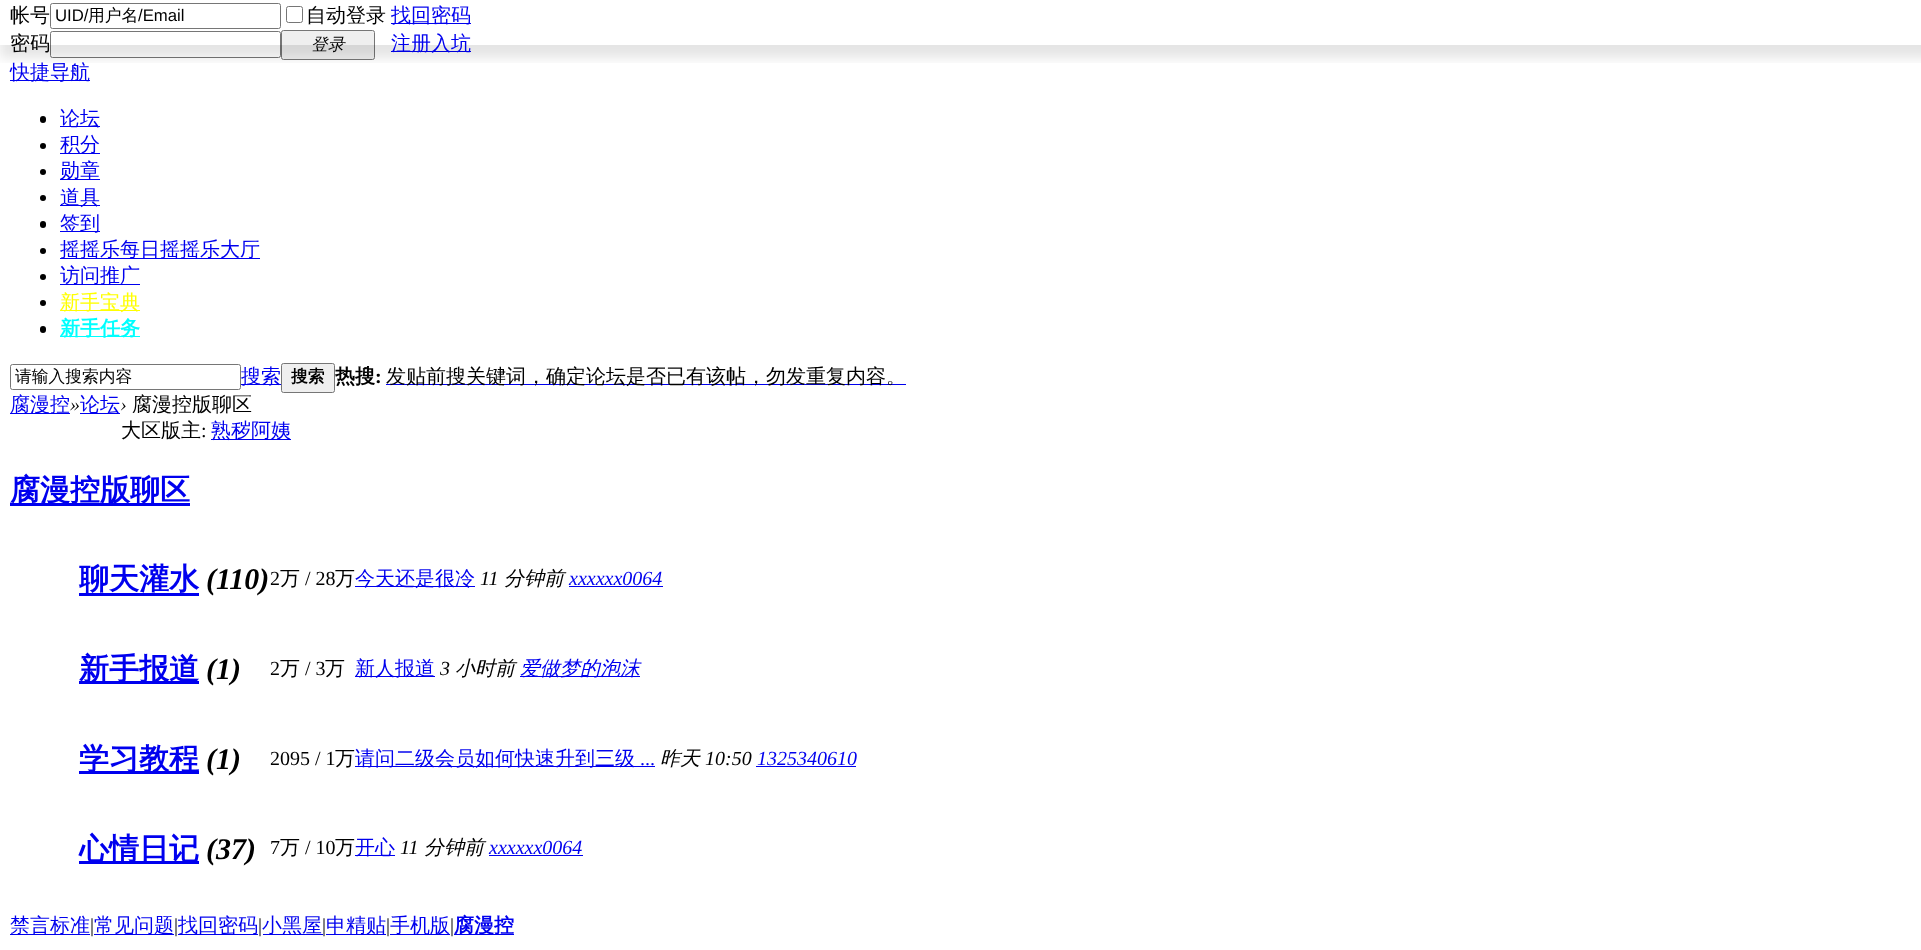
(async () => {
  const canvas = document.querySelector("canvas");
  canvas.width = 1921;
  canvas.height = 950;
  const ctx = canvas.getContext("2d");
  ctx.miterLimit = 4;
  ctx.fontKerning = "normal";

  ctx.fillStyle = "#ffffff";
  ctx.fillRect(0, 0, 1921, 950);
  ctx.beginPath();
  ctx.roundRect(50.5, 3.5, 230, 25, 2);
  ctx.strokeStyle = "#767676";
  ctx.stroke();
  ctx.beginPath();
  ctx.roundRect(286.5, 6.5, 16, 16, 2);
  ctx.stroke();
  ctx.fillStyle = "#0000ee";
  ctx.fillRect(391, 23, 80, 1);
  ctx.beginPath();
  ctx.roundRect(50.5, 31.5, 230, 26, 2);
  ctx.stroke();
  ctx.fillStyle = "#efefef";
  ctx.beginPath();
  ctx.roundRect(281.5, 30.5, 93, 29, 2);
  ctx.fill();
  ctx.stroke();
  ctx.fillStyle = "#0000ee";
  ctx.fillRect(391, 51, 80, 1);
  ctx.save();
  ctx.beginPath();
  ctx.rect(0, 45, 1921, 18);
  ctx.clip();
  ctx.fillStyle = "rgba(0, 0, 0, 0.1)";
  ctx.filter = "blur(6px)";
  ctx.beginPath();
  ctx.rect(0, 13, 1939, 45);
  ctx.fill();
  ctx.filter = "none";
  ctx.restore();
  ctx.fillRect(10, 80, 80, 1);
  ctx.fillStyle = "#000000";
  ctx.beginPath();
  ctx.roundRect(40, 116, 6, 7, 3);
  ctx.fill();
  ctx.fillStyle = "#0000ee";
  ctx.fillRect(60, 126, 40, 1);
  ctx.fillStyle = "#000000";
  ctx.beginPath();
  ctx.arc(43, 146, 3, 0, Math.PI * 2);
  ctx.fill();
  ctx.fillStyle = "#0000ee";
  ctx.fillRect(60, 153, 40, 1);
  ctx.fillStyle = "#000000";
  ctx.beginPath();
  ctx.arc(43, 172, 3, 0, Math.PI * 2);
  ctx.fill();
  ctx.fillStyle = "#0000ee";
  ctx.fillRect(60, 179, 40, 1);
  ctx.fillStyle = "#000000";
  ctx.beginPath();
  ctx.arc(43, 198, 3, 0, Math.PI * 2);
  ctx.fill();
  ctx.fillStyle = "#0000ee";
  ctx.fillRect(60, 205, 40, 1);
  ctx.fillStyle = "#000000";
  ctx.beginPath();
  ctx.roundRect(40, 221, 6, 7, 3);
  ctx.fill();
  ctx.fillStyle = "#0000ee";
  ctx.fillRect(60, 231, 40, 1);
  ctx.fillStyle = "#000000";
  ctx.beginPath();
  ctx.arc(43, 251, 3, 0, Math.PI * 2);
  ctx.fill();
  ctx.fillStyle = "#0000ee";
  ctx.fillRect(60, 258, 200, 1);
  ctx.fillStyle = "#000000";
  ctx.beginPath();
  ctx.arc(43, 277, 3, 0, Math.PI * 2);
  ctx.fill();
  ctx.fillStyle = "#0000ee";
  ctx.fillRect(60, 284, 80, 1);
  ctx.fillStyle = "#000000";
  ctx.beginPath();
  ctx.arc(43, 303, 3, 0, Math.PI * 2);
  ctx.fill();
  ctx.fillStyle = "#ffff00";
  ctx.fillRect(60, 310, 80, 1);
  ctx.fillStyle = "#000000";
  ctx.beginPath();
  ctx.roundRect(40, 326, 6, 7, 3);
  ctx.fill();
  ctx.fillStyle = "#00ffff";
  ctx.fillRect(60, 336, 80, 1);
  ctx.beginPath();
  ctx.roundRect(10.5, 364.5, 230, 25, 2);
  ctx.stroke();
  ctx.fillStyle = "#0000ee";
  ctx.fillRect(241, 384, 40, 1);
  ctx.fillStyle = "#efefef";
  ctx.beginPath();
  ctx.roundRect(281.5, 363.5, 53, 29, 2);
  ctx.fill();
  ctx.stroke();
  for (const [x, y, w, h, color] of [
    [386, 384, 520, 1, "#0000ee"],
    [10, 413, 60, 1, "#0000ee"],
    [80, 413, 40, 1, "#0000ee"],
    [211, 439, 80, 1, "#0000ee"],
    [10, 503, 180, 3, "#0000ee"],
    [79, 593, 120, 3, "#0000ee"],
    [355, 586, 120, 1, "#0000ee"],
    [569, 586, 94, 1, "#0000ee"],
    [79, 681, 120, 3, "#0000ee"],
    [355, 676, 80, 1, "#0000ee"],
    [520, 676, 120, 1, "#0000ee"],
    [79, 771, 120, 3, "#0000ee"],
    [355, 766, 300, 1, "#0000ee"],
    [756, 766, 100, 1, "#0000ee"],
    [79, 861, 120, 3, "#0000ee"],
    [355, 855, 40, 1, "#0000ee"],
    [489, 855, 94, 1, "#0000ee"],
    [10, 934, 80, 1, "#0000ee"],
    [94, 934, 80, 1, "#0000ee"],
    [178, 934, 80, 1, "#0000ee"],
    [263, 934, 60, 1, "#0000ee"],
    [326, 934, 60, 1, "#0000ee"],
    [390, 934, 60, 1, "#0000ee"],
    [454, 934, 60, 1, "#0000ee"],
  ]) {
    ctx.fillStyle = color;
    ctx.fillRect(x, y, w, h);
  }
  ctx.font = "500 20px WenQuanYi Zen Hei";
  ctx.fillStyle = "#000000";
  ctx.fillText("帐号", 10, 22);
  ctx.font = "16.75px Liberation Sans";
  ctx.fillText("UID/", 55, 21);
  ctx.font = "500 16.75px WenQuanYi Zen Hei";
  ctx.fillText("用户名", 88, 21);
  ctx.font = "16.75px Liberation Sans";
  ctx.fillText("/Email", 138, 21);
  ctx.font = "500 20px WenQuanYi Zen Hei";
  ctx.fillText("自动登录", 306, 22);
  ctx.fillStyle = "#0000ee";
  ctx.fillText("找回密码", 391, 22);
  ctx.fillStyle = "#000000";
  ctx.fillText("密码", 10, 50);
  ctx.font = "italic 500 16.75px WenQuanYi Zen Hei";
  ctx.fillText("登录", 311, 50);
  ctx.font = "500 20px WenQuanYi Zen Hei";
  ctx.fillStyle = "#0000ee";
  for (const [text, x, y] of [
    ["注册入坑", 391, 50],
    ["快捷导航", 10, 79],
    ["论坛", 60, 125],
    ["积分", 60, 151],
    ["勋章", 60, 177],
    ["道具", 60, 204],
    ["签到", 60, 230],
    ["摇摇乐每日摇摇乐大厅", 60, 256],
    ["访问推广", 60, 282],
  ]) {
    ctx.fillText(text, x, y);
  }
  ctx.fillStyle = "#ffff00";
  ctx.fillText("新手宝典", 60, 309);
  ctx.font = "bold 20px WenQuanYi Zen Hei";
  ctx.fillStyle = "#00ffff";
  ctx.fillText("新手任务", 60, 335);
  ctx.font = "500 16.75px WenQuanYi Zen Hei";
  ctx.fillStyle = "#000000";
  ctx.fillText("请输入搜索内容", 15, 382);
  ctx.font = "500 20px WenQuanYi Zen Hei";
  ctx.fillStyle = "#0000ee";
  ctx.fillText("搜索", 241, 383);
  ctx.font = "bold 16.75px WenQuanYi Zen Hei";
  ctx.fillStyle = "#000000";
  ctx.fillText("搜索", 291, 382);
  ctx.font = "bold 20px WenQuanYi Zen Hei";
  ctx.fillText("热搜", 335, 383);
  ctx.font = "bold 20px Liberation Serif";
  ctx.fillText(":", 375, 383);
  ctx.font = "500 20px WenQuanYi Zen Hei";
  ctx.fillText("发贴前搜关键词，确定论坛是否已有该帖，勿发重复内容。", 386, 383);
  ctx.fillStyle = "#0000ee";
  ctx.fillText("腐漫控", 10, 411);
  ctx.font = "italic 20px Liberation Serif";
  ctx.fillStyle = "#000000";
  ctx.fillText("»", 70, 411);
  ctx.font = "500 20px WenQuanYi Zen Hei";
  ctx.fillStyle = "#0000ee";
  ctx.fillText("论坛", 80, 411);
  ctx.font = "italic 20px Liberation Serif";
  ctx.fillStyle = "#000000";
  ctx.fillText("›", 120, 411);
  ctx.font = "500 20px WenQuanYi Zen Hei";
  ctx.fillText("腐漫控版聊区", 132, 411);
  ctx.fillText("大区版主", 121, 437);
  ctx.font = "20px Liberation Serif";
  ctx.fillText(":", 201, 437);
  ctx.font = "500 20px WenQuanYi Zen Hei";
  ctx.fillStyle = "#0000ee";
  ctx.fillText("熟秽阿姨", 211, 437);
  ctx.font = "bold 30px WenQuanYi Zen Hei";
  ctx.fillText("腐漫控版聊区", 10, 500);
  ctx.fillText("聊天灌水", 79, 589);
  ctx.font = "italic bold 30px Liberation Serif";
  ctx.fillStyle = "#000000";
  ctx.fillText("(110)", 206, 589);
  ctx.font = "20px Liberation Serif";
  ctx.fillText("2", 270, 585);
  ctx.font = "500 20px WenQuanYi Zen Hei";
  ctx.fillText("万", 280, 585);
  ctx.font = "20px Liberation Serif";
  ctx.fillText("/ 28", 305, 585);
  ctx.font = "500 20px WenQuanYi Zen Hei";
  ctx.fillText("万", 335, 585);
  ctx.fillStyle = "#0000ee";
  ctx.fillText("今天还是很冷", 355, 585);
  ctx.font = "italic 20px Liberation Serif";
  ctx.fillStyle = "#000000";
  ctx.fillText("11", 480, 585);
  ctx.font = "italic 500 20px WenQuanYi Zen Hei";
  ctx.fillText("分钟前", 504, 585);
  ctx.font = "italic 20px Liberation Serif";
  ctx.fillStyle = "#0000ee";
  ctx.fillText("xxxxxx0064", 569, 585);
  ctx.font = "bold 30px WenQuanYi Zen Hei";
  ctx.fillText("新手报道", 79, 679);
  ctx.font = "italic bold 30px Liberation Serif";
  ctx.fillStyle = "#000000";
  ctx.fillText("(1)", 206, 679);
  ctx.font = "20px Liberation Serif";
  ctx.fillText("2", 270, 675);
  ctx.font = "500 20px WenQuanYi Zen Hei";
  ctx.fillText("万", 280, 675);
  ctx.font = "20px Liberation Serif";
  ctx.fillText("/ 3", 305, 675);
  ctx.font = "500 20px WenQuanYi Zen Hei";
  ctx.fillText("万", 325, 675);
  ctx.fillStyle = "#0000ee";
  ctx.fillText("新人报道", 355, 675);
  ctx.font = "italic 20px Liberation Serif";
  ctx.fillStyle = "#000000";
  ctx.fillText("3", 440, 675);
  ctx.font = "italic 500 20px WenQuanYi Zen Hei";
  ctx.fillText("小时前", 455, 675);
  ctx.fillStyle = "#0000ee";
  ctx.fillText("爱做梦的泡沫", 520, 675);
  ctx.font = "bold 30px WenQuanYi Zen Hei";
  ctx.fillText("学习教程", 79, 769);
  ctx.font = "italic bold 30px Liberation Serif";
  ctx.fillStyle = "#000000";
  ctx.fillText("(1)", 206, 769);
  ctx.font = "20px Liberation Serif";
  ctx.fillText("2095 / 1", 270, 765);
  ctx.font = "500 20px WenQuanYi Zen Hei";
  ctx.fillText("万", 335, 765);
  ctx.fillStyle = "#0000ee";
  ctx.fillText("请问二级会员如何快速升到三级", 355, 765);
  ctx.font = "20px Liberation Serif";
  ctx.fillText("...", 640, 765);
  ctx.font = "italic 500 20px WenQuanYi Zen Hei";
  ctx.fillStyle = "#000000";
  ctx.fillText("昨天", 660, 765);
  ctx.font = "italic 20px Liberation Serif";
  ctx.fillText("10:50", 705, 765);
  ctx.fillStyle = "#0000ee";
  ctx.fillText("1325340610", 757, 765);
  ctx.font = "bold 30px WenQuanYi Zen Hei";
  ctx.fillText("心情日记", 79, 859);
  ctx.font = "italic bold 30px Liberation Serif";
  ctx.fillStyle = "#000000";
  ctx.fillText("(37)", 206, 859);
  ctx.font = "20px Liberation Serif";
  ctx.fillText("7", 270, 854);
  ctx.font = "500 20px WenQuanYi Zen Hei";
  ctx.fillText("万", 280, 854);
  ctx.font = "20px Liberation Serif";
  ctx.fillText("/ 10", 305, 854);
  ctx.font = "500 20px WenQuanYi Zen Hei";
  ctx.fillText("万", 335, 854);
  ctx.fillStyle = "#0000ee";
  ctx.fillText("开心", 355, 854);
  ctx.font = "italic 20px Liberation Serif";
  ctx.fillStyle = "#000000";
  ctx.fillText("11", 400, 854);
  ctx.font = "italic 500 20px WenQuanYi Zen Hei";
  ctx.fillText("分钟前", 424, 854);
  ctx.font = "italic 20px Liberation Serif";
  ctx.fillStyle = "#0000ee";
  ctx.fillText("xxxxxx0064", 489, 854);
  ctx.font = "500 20px WenQuanYi Zen Hei";
  ctx.fillText("禁言标准", 10, 932);
  ctx.font = "20px Liberation Serif";
  ctx.fillStyle = "#000000";
  ctx.fillText("|", 90, 932);
  ctx.font = "500 20px WenQuanYi Zen Hei";
  ctx.fillStyle = "#0000ee";
  ctx.fillText("常见问题", 94, 932);
  ctx.font = "20px Liberation Serif";
  ctx.fillStyle = "#000000";
  ctx.fillText("|", 174, 932);
  ctx.font = "500 20px WenQuanYi Zen Hei";
  ctx.fillStyle = "#0000ee";
  ctx.fillText("找回密码", 178, 932);
  ctx.font = "20px Liberation Serif";
  ctx.fillStyle = "#000000";
  ctx.fillText("|", 258, 932);
  ctx.font = "500 20px WenQuanYi Zen Hei";
  ctx.fillStyle = "#0000ee";
  ctx.fillText("小黑屋", 262, 932);
  ctx.font = "20px Liberation Serif";
  ctx.fillStyle = "#000000";
  ctx.fillText("|", 322, 932);
  ctx.font = "500 20px WenQuanYi Zen Hei";
  ctx.fillStyle = "#0000ee";
  ctx.fillText("申精贴", 326, 932);
  ctx.font = "20px Liberation Serif";
  ctx.fillStyle = "#000000";
  ctx.fillText("|", 386, 932);
  ctx.font = "500 20px WenQuanYi Zen Hei";
  ctx.fillStyle = "#0000ee";
  ctx.fillText("手机版", 390, 932);
  ctx.font = "20px Liberation Serif";
  ctx.fillStyle = "#000000";
  ctx.fillText("|", 450, 932);
  ctx.font = "bold 20px WenQuanYi Zen Hei";
  ctx.fillStyle = "#0000ee";
  ctx.fillText("腐漫控", 454, 932);
})();
